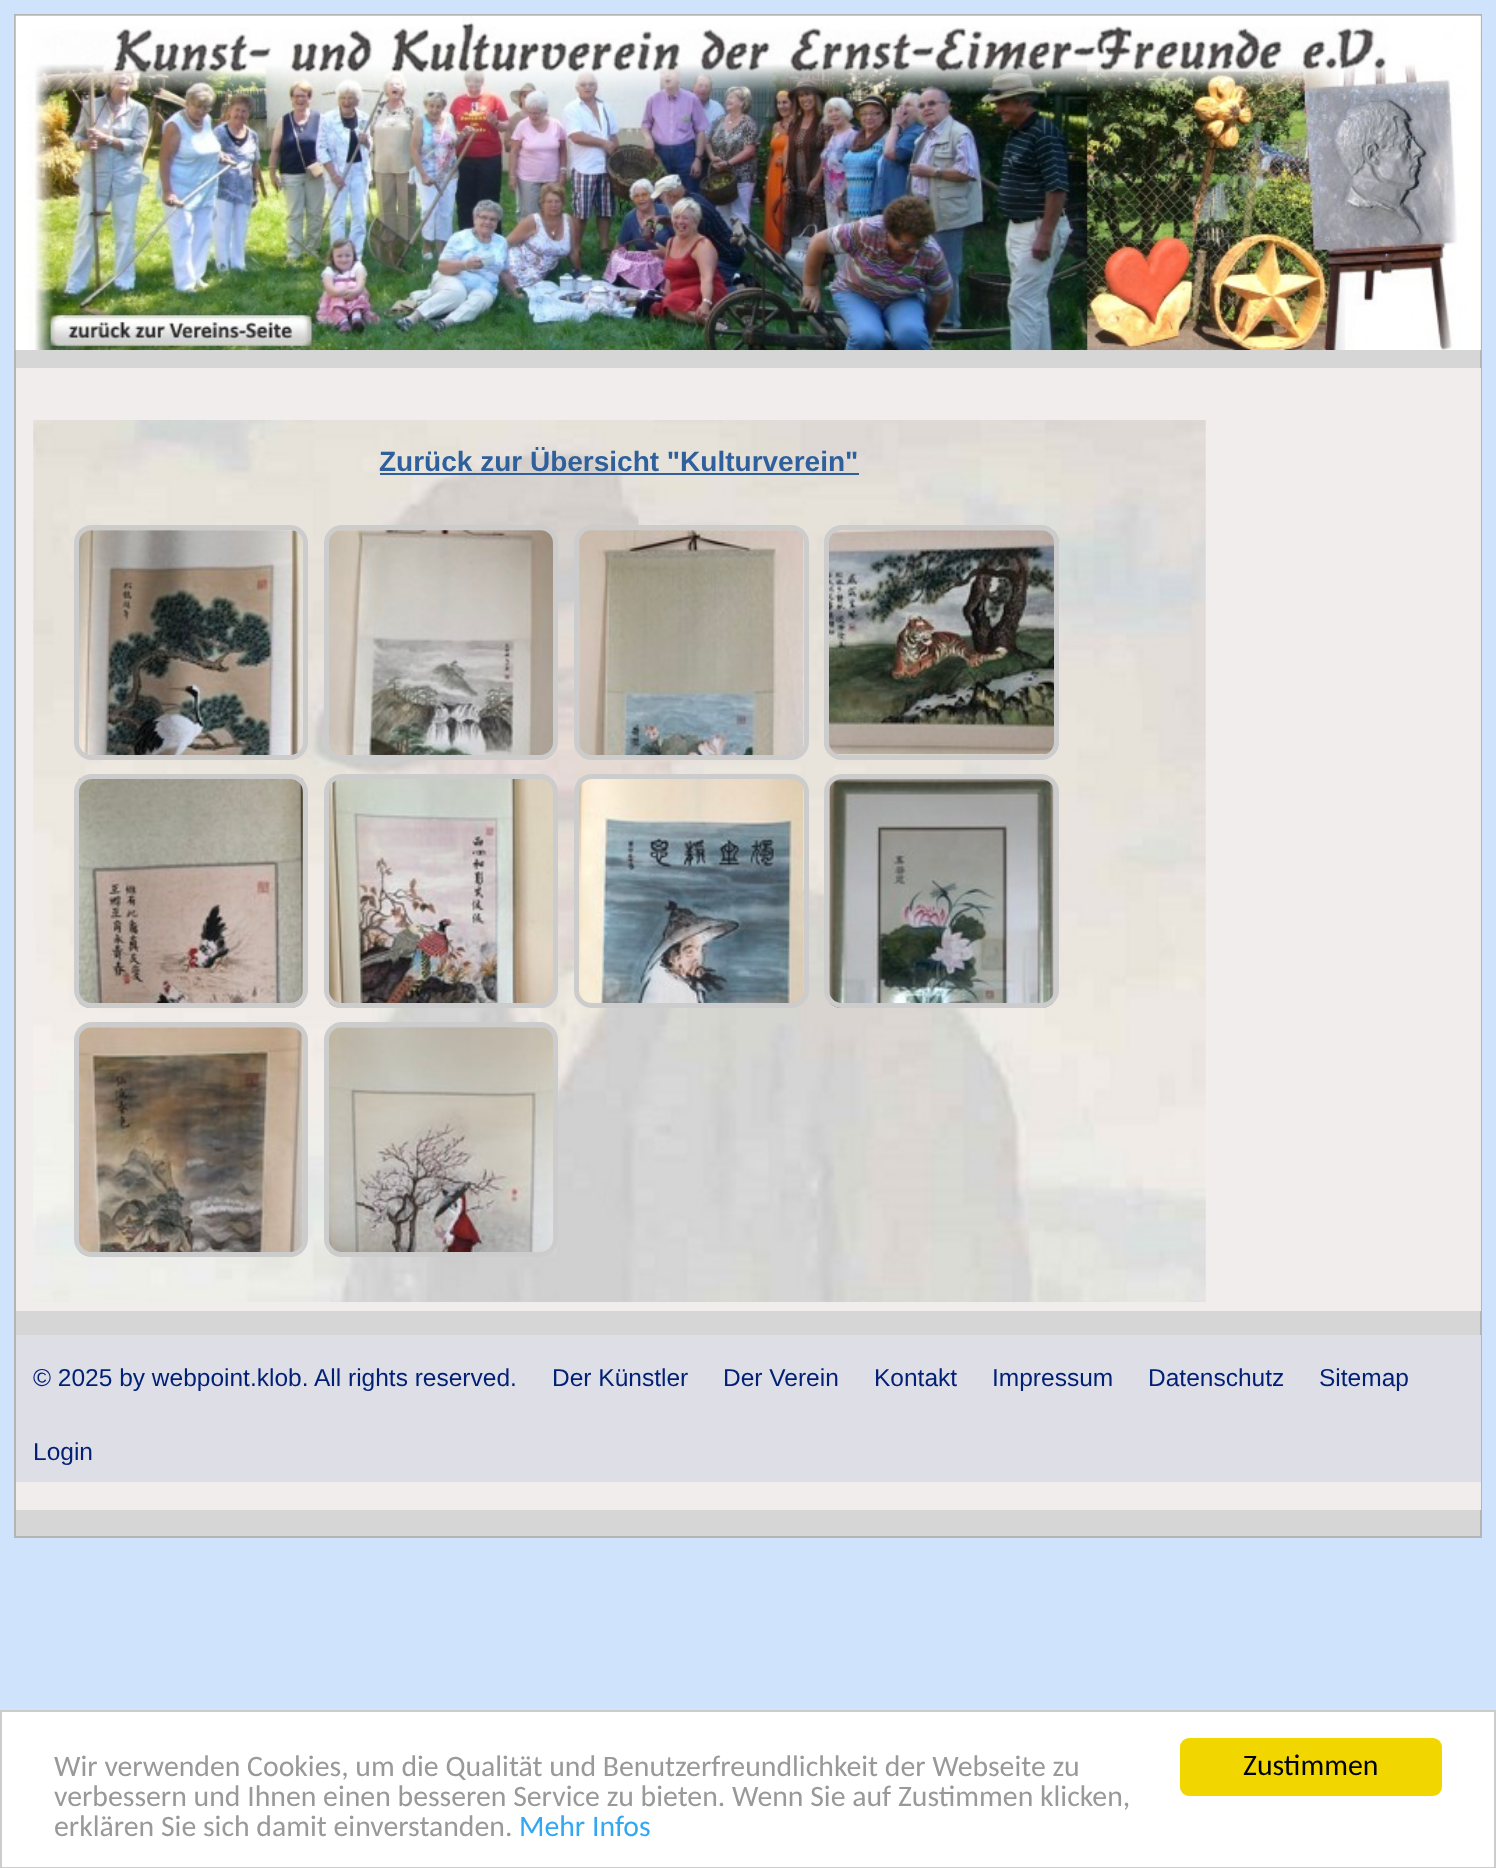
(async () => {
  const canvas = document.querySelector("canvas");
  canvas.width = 1496;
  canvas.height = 1868;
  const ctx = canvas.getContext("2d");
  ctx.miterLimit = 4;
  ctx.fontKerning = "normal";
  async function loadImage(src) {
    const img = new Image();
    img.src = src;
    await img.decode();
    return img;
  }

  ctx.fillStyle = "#cfe4fc";
  ctx.fillRect(0, 0, 1496, 1868);
  ctx.fillStyle = "#d6d6d6";
  ctx.fillRect(16, 350, 1464, 1186);
  ctx.strokeStyle = "#b5b5b5";
  ctx.lineWidth = 2;
  ctx.strokeRect(15, 15, 1466, 1522);
  ctx.fillStyle = "#f2eded";
  ctx.fillRect(1480, 16, 1, 334);
  ctx.drawImage(await loadImage("img/1.png"), 15, 15, 1466, 335);
  ctx.fillRect(16, 368, 1465, 943);
  ctx.drawImage(await loadImage("img/2.png"), 33, 420, 1173, 882);
  ctx.fillStyle = "#2f609b";
  ctx.fillRect(380, 473, 479, 2);
  ctx.drawImage(await loadImage("img/3.png"), 78, 530, 225, 230);
  ctx.beginPath();
  ctx.roundRect(76.5, 527.5, 229, 230, 15.5);
  ctx.strokeStyle = "#cccccc";
  ctx.lineWidth = 5;
  ctx.stroke();
  ctx.drawImage(await loadImage("img/4.png"), 329, 530, 224, 230);
  ctx.beginPath();
  ctx.roundRect(326.5, 527.5, 229, 230, 15.5);
  ctx.stroke();
  ctx.drawImage(await loadImage("img/5.png"), 579, 530, 225, 230);
  ctx.beginPath();
  ctx.roundRect(576.5, 527.5, 230, 230, 15.5);
  ctx.stroke();
  ctx.drawImage(await loadImage("img/6.png"), 824, 530, 235, 225);
  ctx.beginPath();
  ctx.roundRect(826.5, 527.5, 230, 230, 15.5);
  ctx.stroke();
  ctx.drawImage(await loadImage("img/7.png"), 78, 778, 225, 230);
  ctx.beginPath();
  ctx.roundRect(76.5, 776.5, 229, 229, 15.5);
  ctx.stroke();
  ctx.drawImage(await loadImage("img/8.png"), 329, 778, 224, 230);
  ctx.beginPath();
  ctx.roundRect(326.5, 776.5, 229, 229, 15.5);
  ctx.stroke();
  ctx.drawImage(await loadImage("img/9.png"), 579, 778, 225, 230);
  ctx.beginPath();
  ctx.roundRect(576.5, 776.5, 230, 229, 15.5);
  ctx.stroke();
  ctx.drawImage(await loadImage("img/10.png"), 829, 778, 225, 230);
  ctx.beginPath();
  ctx.roundRect(826.5, 776.5, 230, 229, 15.5);
  ctx.stroke();
  ctx.drawImage(await loadImage("img/11.png"), 78, 1027, 225, 230);
  ctx.beginPath();
  ctx.roundRect(76.5, 1024.5, 229, 230, 15.5);
  ctx.stroke();
  ctx.drawImage(await loadImage("img/12.png"), 329, 1027, 224, 230);
  ctx.beginPath();
  ctx.roundRect(326.5, 1024.5, 229, 230, 15.5);
  ctx.stroke();
  ctx.fillStyle = "#f2eded";
  ctx.fillRect(16, 1482, 1465, 28);
  ctx.fillStyle = "#dddee6";
  ctx.fillRect(16, 1335, 1465, 147);
  ctx.fillStyle = "#ffffff";
  ctx.beginPath();
  ctx.rect(1, 1711, 1494, 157);
  ctx.fill();
  ctx.lineWidth = 2;
  ctx.stroke();
  ctx.fillStyle = "#f1d600";
  ctx.beginPath();
  ctx.roundRect(1180, 1738, 262, 58, 9);
  ctx.fill();
  ctx.font = "bold 28px Liberation Sans";
  ctx.fillStyle = "#2f609b";
  ctx.fillText("Zurück zur Übersicht \"Kulturverein\"", 379, 471);
  ctx.font = "24.5px Liberation Sans";
  ctx.fillStyle = "#001f75";
  for (const [text, x, y] of [
    ["© 2025 by webpoint.klob. All rights reserved.", 33, 1386],
    ["Der Künstler", 552, 1386],
    ["Der Verein", 723, 1386],
    ["Kontakt", 874, 1386],
    ["Impressum", 992, 1386],
    ["Datenschutz", 1148, 1386],
    ["Sitemap", 1319, 1386],
    ["Login", 33, 1460],
  ]) {
    ctx.fillText(text, x, y);
  }
  ctx.font = "29.75px Carlito";
  ctx.fillStyle = "#999999";
  for (const [text, x, y] of [
    ["Wir verwenden Cookies, um die Qualität und Benutzerfreundlichkeit der Webseite zu", 54, 1776],
    ["verbessern und Ihnen einen besseren Service zu bieten. Wenn Sie auf Zustimmen klicken,", 54, 1806],
    ["erklären Sie sich damit einverstanden.", 54, 1836],
  ]) {
    ctx.fillText(text, x, y);
  }
  ctx.fillStyle = "#31a8f0";
  ctx.fillText("Mehr Infos", 519, 1836);
  ctx.fillStyle = "#000000";
  ctx.fillText("Zustimmen", 1243, 1775);
})();
